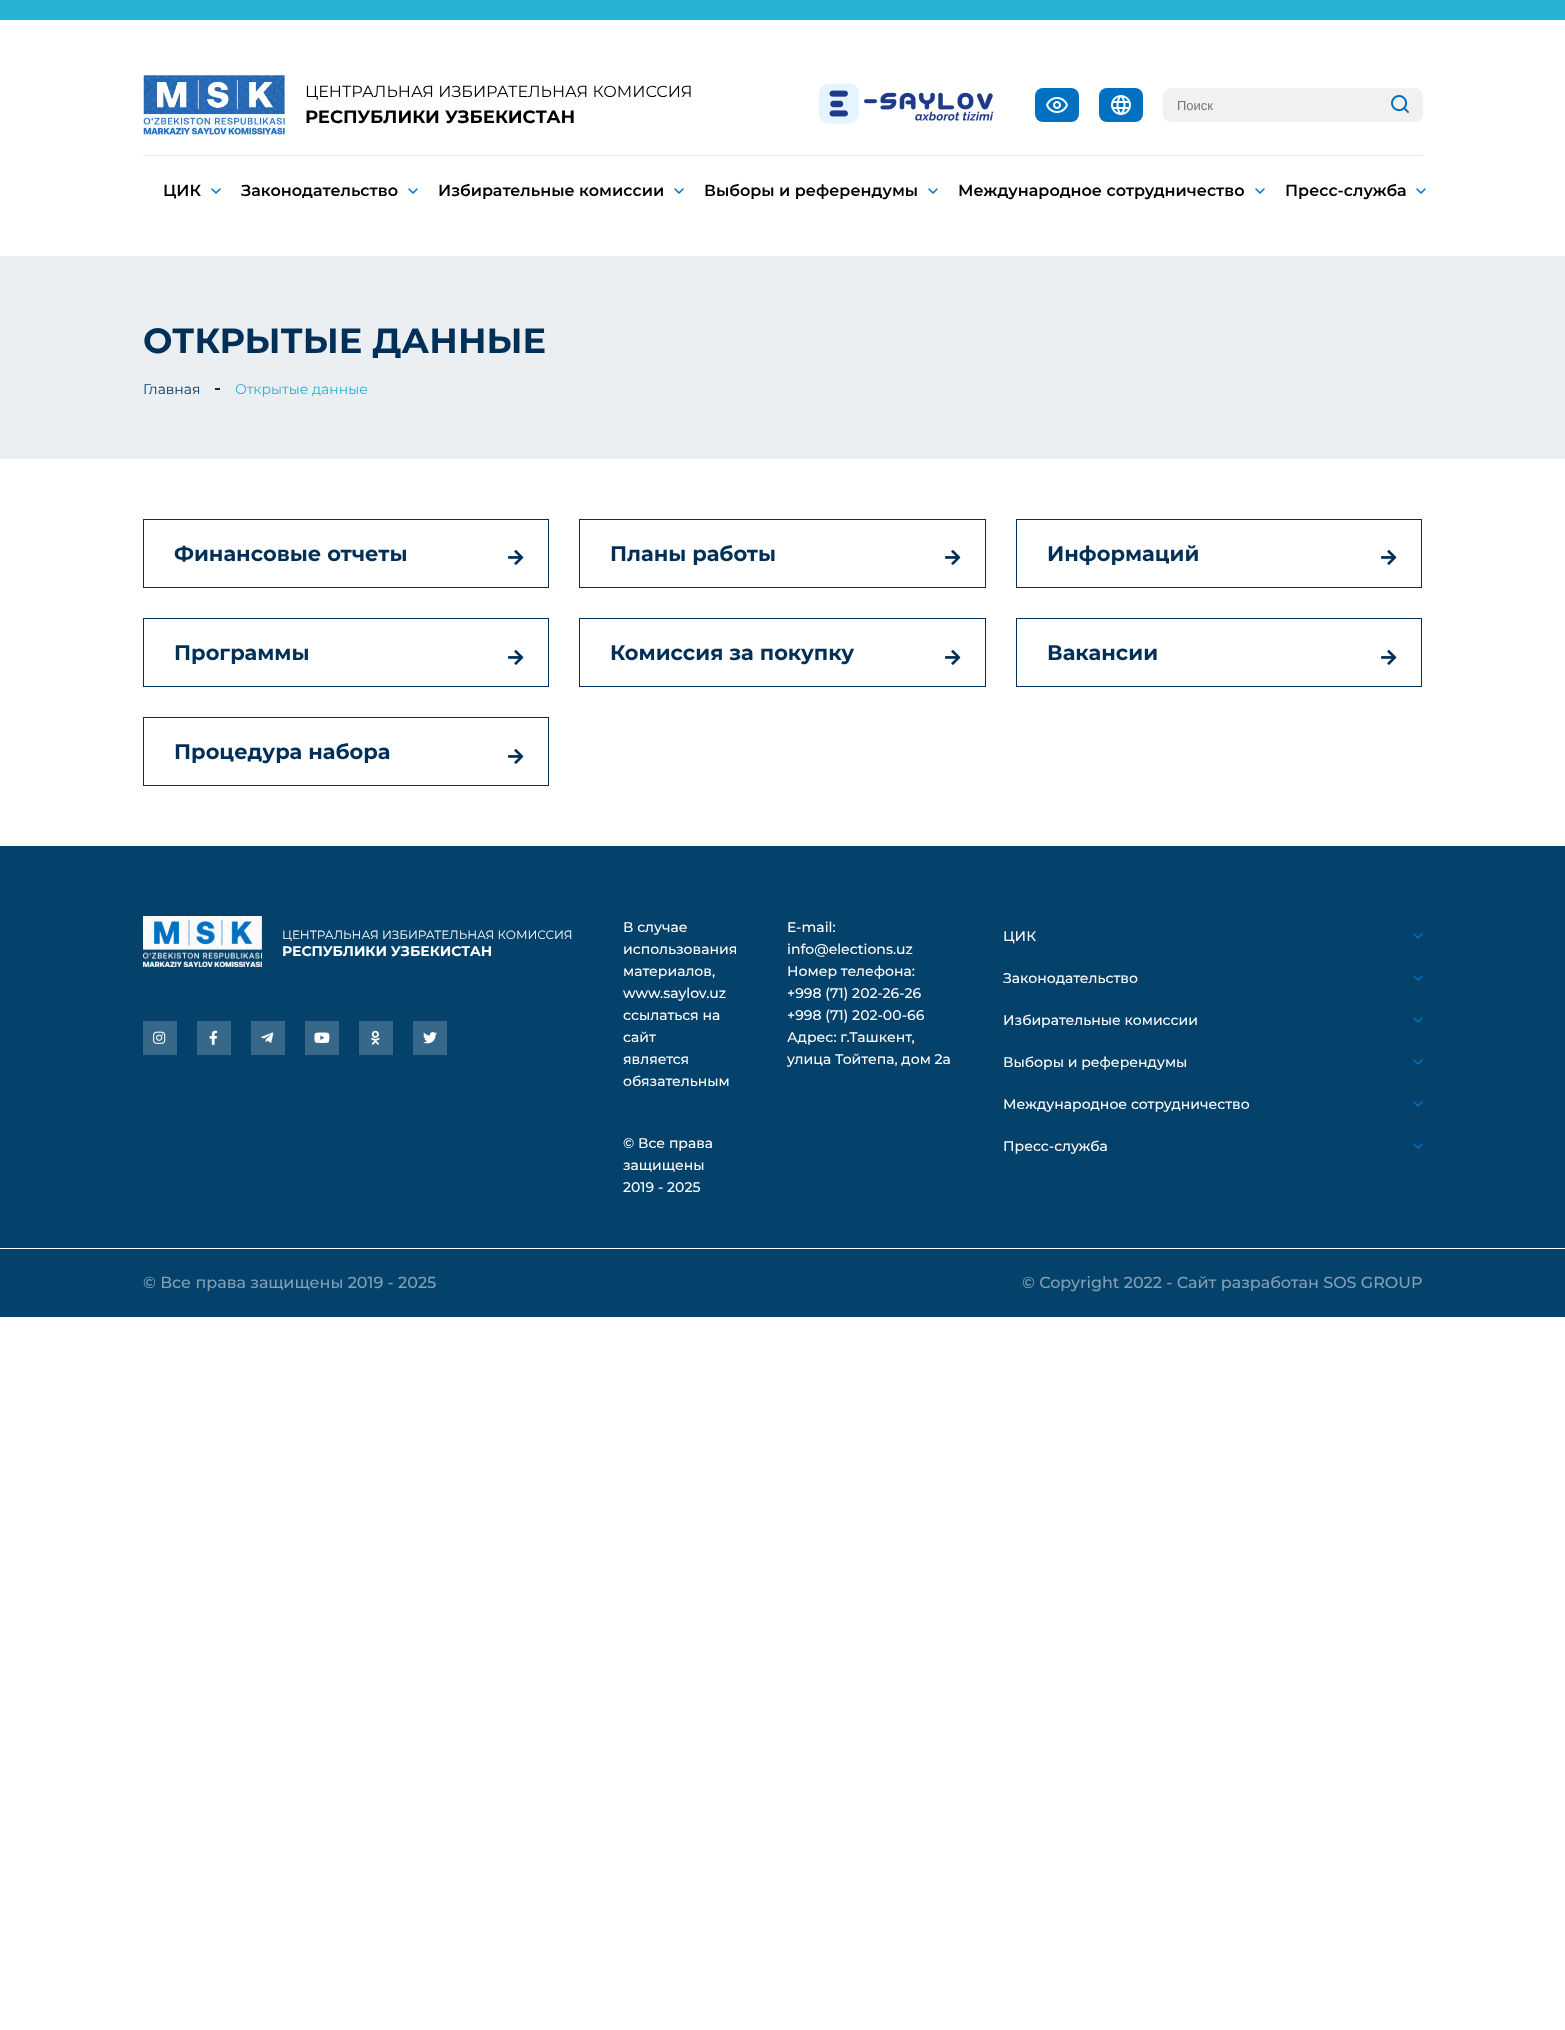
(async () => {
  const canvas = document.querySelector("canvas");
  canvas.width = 1565;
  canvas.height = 2030;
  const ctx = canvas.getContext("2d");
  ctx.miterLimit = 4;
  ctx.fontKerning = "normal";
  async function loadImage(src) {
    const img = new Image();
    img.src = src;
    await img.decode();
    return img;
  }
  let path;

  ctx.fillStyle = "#ffffff";
  ctx.fillRect(0, 0, 1565, 2030);
  ctx.fillStyle = "#25b2d3";
  ctx.fillRect(0, 0, 1565, 20);
  ctx.fillStyle = "#e7e7e7";
  ctx.fillRect(143, 155, 1280, 1);
  ctx.drawImage(await loadImage("img/1.png"), 143, 75, 142, 60);
  ctx.drawImage(await loadImage("img/2.png"), 819, 83, 175, 41);
  ctx.fillStyle = "#0071c1";
  ctx.beginPath();
  ctx.roundRect(1035, 88, 44, 34, 8);
  ctx.fill();
  ctx.drawImage(await loadImage("img/3.png"), 1046, 97, 22, 16);
  ctx.beginPath();
  ctx.roundRect(1099, 88, 44, 34, 8);
  ctx.fill();
  ctx.drawImage(await loadImage("img/4.png"), 1111, 95, 20, 20);
  ctx.fillStyle = "#f1f1f1";
  ctx.beginPath();
  ctx.roundRect(1163, 88, 260, 34, 8);
  ctx.fill();
  ctx.drawImage(await loadImage("img/5.png"), 1391, 95, 18, 18);
  path = new Path2D("M212 189L216 193L220 189");
  ctx.strokeStyle = "#0071c1";
  ctx.lineWidth = 1.5;
  ctx.lineCap = "round";
  ctx.lineJoin = "round";
  ctx.stroke(path);
  path = new Path2D("M409 189L413 193L417 189");
  ctx.stroke(path);
  path = new Path2D("M675 189L679 193L683 189");
  ctx.stroke(path);
  path = new Path2D("M929 189L933 193L937 189");
  ctx.stroke(path);
  path = new Path2D("M1256 189L1260 193L1264 189");
  ctx.stroke(path);
  path = new Path2D("M1417 189L1421 193L1425 189");
  ctx.stroke(path);
  ctx.fillStyle = "#ebeff2";
  ctx.fillRect(0, 256, 1565, 203);
  ctx.fillStyle = "#003057";
  ctx.fillRect(215, 388, 5, 2);
  ctx.strokeStyle = "#003057";
  ctx.lineWidth = 1;
  ctx.lineJoin = "miter";
  ctx.strokeRect(143.5, 519.5, 405, 68);
  ctx.drawImage(await loadImage("img/6.png"), 508, 550, 16, 15);
  ctx.strokeRect(579.5, 519.5, 406, 68);
  ctx.drawImage(await loadImage("img/6.png"), 945, 550, 16, 15);
  ctx.strokeRect(1016.5, 519.5, 405, 68);
  ctx.drawImage(await loadImage("img/6.png"), 1381, 550, 16, 15);
  ctx.strokeRect(143.5, 618.5, 405, 68);
  ctx.drawImage(await loadImage("img/6.png"), 508, 650, 16, 15);
  ctx.strokeRect(579.5, 618.5, 406, 68);
  ctx.drawImage(await loadImage("img/6.png"), 945, 650, 16, 15);
  ctx.strokeRect(1016.5, 618.5, 405, 68);
  ctx.drawImage(await loadImage("img/6.png"), 1381, 650, 16, 15);
  ctx.strokeRect(143.5, 717.5, 405, 68);
  ctx.drawImage(await loadImage("img/6.png"), 508, 749, 16, 15);
  ctx.fillStyle = "#05426b";
  ctx.fillRect(0, 846, 1565, 471);
  ctx.fillStyle = "#ffffff";
  ctx.fillRect(0, 1248, 1565, 1);
  ctx.drawImage(await loadImage("img/7.png"), 143, 916, 119, 51);
  ctx.fillStyle = "#376889";
  ctx.fillRect(143, 1021, 34, 34);
  ctx.drawImage(await loadImage("img/8.png"), 153, 1031, 13, 13);
  ctx.fillRect(197, 1021, 34, 34);
  ctx.drawImage(await loadImage("img/9.png"), 209, 1030, 9, 15);
  ctx.fillRect(251, 1021, 34, 34);
  ctx.drawImage(await loadImage("img/10.png"), 261, 1032, 13, 11);
  ctx.fillRect(305, 1021, 34, 34);
  ctx.drawImage(await loadImage("img/11.png"), 314, 1032, 16, 11);
  ctx.fillRect(359, 1021, 34, 34);
  ctx.drawImage(await loadImage("img/12.png"), 371, 1030, 9, 15);
  ctx.fillRect(413, 1021, 34, 34);
  ctx.drawImage(await loadImage("img/13.png"), 423, 1032, 14, 12);
  path = new Path2D("M1414 934L1418 938L1422 934");
  ctx.strokeStyle = "#0071c1";
  ctx.lineWidth = 1.5;
  ctx.lineJoin = "round";
  ctx.stroke(path);
  path = new Path2D("M1414 976L1418 980L1422 976");
  ctx.stroke(path);
  path = new Path2D("M1414 1018L1418 1022L1422 1018");
  ctx.stroke(path);
  path = new Path2D("M1414 1060L1418 1064L1422 1060");
  ctx.stroke(path);
  path = new Path2D("M1414 1102L1418 1106L1422 1102");
  ctx.stroke(path);
  path = new Path2D("M1414 1144L1418 1148L1422 1144");
  ctx.stroke(path);
  ctx.font = "16px Montserrat";
  ctx.fillStyle = "#000000";
  ctx.fillText("ЦЕНТРАЛЬНАЯ ИЗБИРАТЕЛЬНАЯ КОМИССИЯ", 305, 97);
  ctx.font = "bold 18px Montserrat";
  ctx.fillText("РЕСПУБЛИКИ УЗБЕКИСТАН", 305, 123);
  ctx.font = "13px Liberation Sans";
  ctx.fillStyle = "#757575";
  ctx.fillText("Поиск", 1177, 110);
  ctx.font = "600 16px Montserrat";
  ctx.fillStyle = "#000000";
  for (const [text, x, y] of [
    ["ЦИК", 163, 196],
    ["Законодательство", 241, 196],
    ["Избирательные комиссии", 438, 196],
    ["Выборы и референдумы", 704, 196],
    ["Международное сотрудничество", 958, 196],
    ["Пресс-служба", 1285, 196],
  ]) {
    ctx.fillText(text, x, y);
  }
  ctx.font = "bold 35px Montserrat";
  ctx.fillStyle = "#003057";
  ctx.fillText("ОТКРЫТЫЕ ДАННЫЕ", 143, 353);
  ctx.font = "14px Montserrat";
  ctx.fillText("Главная", 143, 394);
  ctx.fillStyle = "#25b2d3";
  ctx.fillText("Открытые данные", 235, 394);
  ctx.font = "bold 21px Montserrat";
  ctx.fillStyle = "#003057";
  for (const [text, x, y] of [
    ["Финансовые отчеты", 174, 561],
    ["Планы работы", 610, 561],
    ["Информаций", 1047, 561],
    ["Программы", 174, 660],
    ["Комиссия за покупку", 610, 660],
    ["Вакансии", 1047, 660],
    ["Процедура набора", 174, 759],
  ]) {
    ctx.fillText(text, x, y);
  }
  ctx.font = "12px Montserrat";
  ctx.fillStyle = "#ffffff";
  ctx.fillText("ЦЕНТРАЛЬНАЯ ИЗБИРАТЕЛЬНАЯ КОМИССИЯ", 282, 939);
  ctx.font = "bold 14px Montserrat";
  ctx.fillText("РЕСПУБЛИКИ УЗБЕКИСТАН", 282, 956);
  ctx.font = "500 14px Montserrat";
  for (const [text, x, y] of [
    ["В случае", 623, 932],
    ["использования", 623, 954],
    ["материалов,", 623, 976],
    ["www.saylov.uz", 623, 998],
    ["ссылаться на", 623, 1020],
    ["сайт", 623, 1042],
    ["является", 623, 1064],
    ["обязательным", 623, 1086],
    ["© Все права", 623, 1148],
    ["защищены", 623, 1170],
    ["2019 - 2025", 623, 1192],
    ["E-mail:", 787, 932],
    ["info@elections.uz", 787, 954],
    ["Номер телефона:", 787, 976],
    ["+998 (71) 202-26-26", 787, 998],
    ["+998 (71) 202-00-66", 787, 1020],
    ["Адрес: г.Ташкент,", 787, 1042],
    ["улица Тойтепа, дом 2а", 787, 1064],
    ["ЦИК", 1003, 941],
    ["Законодательство", 1003, 983],
    ["Избирательные комиссии", 1003, 1025],
    ["Выборы и референдумы", 1003, 1067],
    ["Международное сотрудничество", 1003, 1109],
    ["Пресс-служба", 1003, 1151],
  ]) {
    ctx.fillText(text, x, y);
  }
  ctx.font = "500 16px Montserrat";
  ctx.fillStyle = "#82a1b5";
  ctx.fillText("© Все права защищены 2019 - 2025", 143, 1288);
  ctx.fillText("© Copyright 2022 - Сайт разработан SOS GROUP", 1022, 1288);
})();
